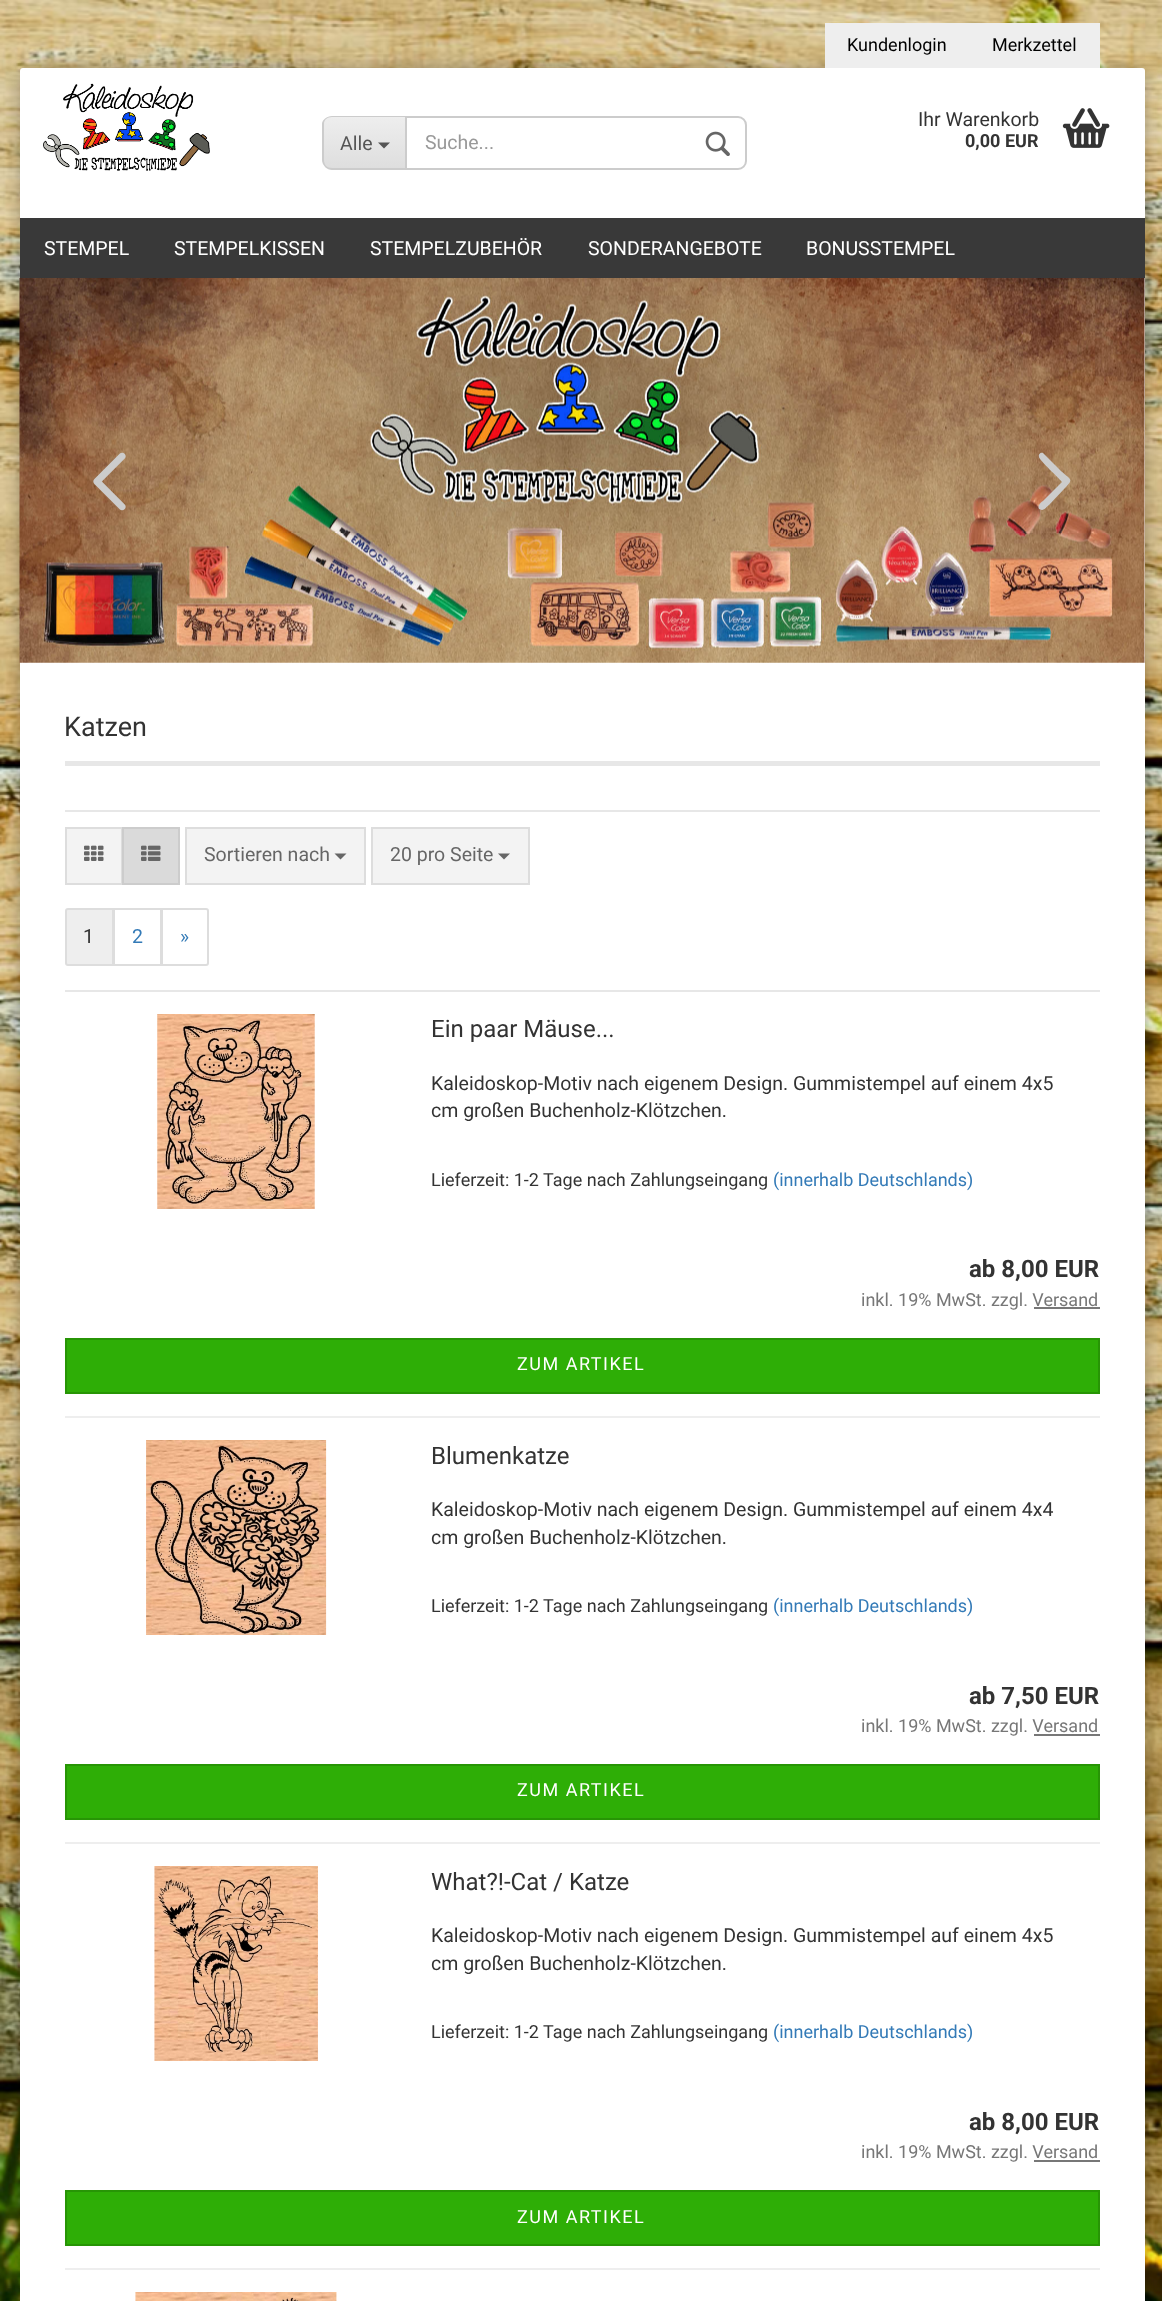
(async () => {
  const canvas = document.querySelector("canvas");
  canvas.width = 1162;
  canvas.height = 2301;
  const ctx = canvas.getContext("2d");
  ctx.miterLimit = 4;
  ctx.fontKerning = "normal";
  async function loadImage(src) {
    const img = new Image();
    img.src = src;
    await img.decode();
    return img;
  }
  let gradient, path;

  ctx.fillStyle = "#ffffff";
  ctx.fillRect(0, 0, 1162, 2301);
  ctx.drawImage(await loadImage("img/1.png"), 0, 0, 1162, 2301);
  ctx.fillStyle = "rgba(0, 0, 0, 0.3)";
  ctx.filter = "blur(7.5px)";
  ctx.beginPath();
  ctx.roundRect(20, 68, 1125, 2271, 15);
  ctx.fill();
  ctx.filter = "none";
  ctx.fillStyle = "#ffffff";
  ctx.beginPath();
  ctx.roundRect(20, 68, 1125, 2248, 15);
  ctx.fill();
  ctx.beginPath();
  ctx.roundRect(20, 68, 1125, 210, 3);
  ctx.fill();
  ctx.fillStyle = "#eeeeee";
  ctx.fillRect(825, 23, 275, 45);
  ctx.drawImage(await loadImage("img/2.png"), 43, 83, 167, 88);
  ctx.save();
  ctx.beginPath();
  ctx.roundRect(323, 116, 82, 54, [9, 0, 0, 9]);
  ctx.clip();
  gradient = ctx.createLinearGradient(365, 117, 365, 168);
  gradient.addColorStop(0, "#eeeeee");
  gradient.addColorStop(1, "#dedede");
  ctx.fillStyle = gradient;
  ctx.fillRect(323, 117, 82, 51);
  ctx.restore();
  ctx.fillStyle = "#cccccc";
  path = new Path2D("M332 116H405V170H332C327 170 322 165 322 160V124C322 120 327 116 332 116ZM332 117H405V168H332C327 168 324 165 324 160V124C324 120 327 117 332 117Z");
  ctx.fill(path, "evenodd");
  ctx.fillStyle = "#555555";
  path = new Path2D("M378 142.5H390L384 148.5Z");
  ctx.fill(path);
  ctx.beginPath();
  ctx.roundRect(406, 117, 340, 52, [0, 8, 8, 0]);
  ctx.strokeStyle = "#cccccc";
  ctx.lineWidth = 2;
  ctx.stroke();
  ctx.drawImage(await loadImage("img/3.png"), 705, 131, 25, 25);
  ctx.drawImage(await loadImage("img/4.png"), 1062, 108, 48, 40);
  ctx.fillStyle = "#393939";
  ctx.fillRect(20, 218, 1125, 60);
  ctx.drawImage(await loadImage("img/5.png"), 19, 278, 1126, 385);
  ctx.drawImage(await loadImage("img/6.png"), 93, 452, 33, 59);
  ctx.fillStyle = "#cccccc";
  path = new Path2D("M1042 510L1039 509C1037 506 1041 502 1043 501L1062 482C1059 478 1039 460 1039 457C1038 454 1041 452 1043 453L1061 471C1071 480 1074 479 1065 488L1049 505C1047 506 1045 510 1042 510Z");
  ctx.fill(path);
  for (const [x, y, w, h, color] of [
    [65, 761, 1035, 5, "#e7e7e7"],
    [65, 810, 1035, 2, "#e7e7e7"],
    [65, 990, 1035, 2, "#e7e7e7"],
  ]) {
    ctx.fillStyle = color;
    ctx.fillRect(x, y, w, h);
  }
  ctx.fillStyle = "#f3f3f3";
  ctx.beginPath();
  ctx.rect(66, 828, 56, 56);
  ctx.fill();
  ctx.strokeStyle = "#dddddd";
  ctx.stroke();
  ctx.drawImage(await loadImage("img/7.png"), 84, 845, 20, 16);
  ctx.fillStyle = "#dadada";
  ctx.beginPath();
  ctx.rect(123, 828, 56, 56);
  ctx.fill();
  ctx.strokeStyle = "#cccccc";
  ctx.stroke();
  ctx.drawImage(await loadImage("img/8.png"), 141, 845, 20, 16);
  ctx.fillStyle = "#f3f3f3";
  ctx.beginPath();
  ctx.rect(186, 828, 179, 56);
  ctx.fill();
  ctx.strokeStyle = "#dddddd";
  ctx.stroke();
  ctx.fillStyle = "#666666";
  path = new Path2D("M334.5 853.5H346.5L340.5 859.5Z");
  ctx.fill(path);
  ctx.fillStyle = "#f3f3f3";
  ctx.beginPath();
  ctx.rect(372, 828, 157, 56);
  ctx.fill();
  ctx.stroke();
  ctx.fillStyle = "#666666";
  path = new Path2D("M498 853.5H510L504 859.5Z");
  ctx.fill(path);
  ctx.fillStyle = "#eeeeee";
  ctx.beginPath();
  ctx.roundRect(66, 909, 47, 56, [2, 0, 0, 2]);
  ctx.fill();
  ctx.stroke();
  ctx.strokeRect(114, 909, 47, 56);
  ctx.fillStyle = "#ffffff";
  ctx.beginPath();
  ctx.roundRect(162, 909, 46, 56, [0, 2, 2, 0]);
  ctx.fill();
  ctx.stroke();
  ctx.fillStyle = "#eeeeee";
  ctx.fillRect(65, 1416, 1035, 2);
  ctx.drawImage(await loadImage("img/9.png"), 157, 1014, 158, 195);
  ctx.fillStyle = "#777777";
  ctx.fillRect(1034, 1307, 66, 2);
  ctx.fillStyle = "#2eae06";
  ctx.beginPath();
  ctx.rect(66, 1339, 1033, 54);
  ctx.fill();
  ctx.strokeStyle = "#279505";
  ctx.stroke();
  ctx.fillStyle = "#eeeeee";
  ctx.fillRect(65, 1842, 1035, 2);
  ctx.drawImage(await loadImage("img/10.png"), 146, 1440, 181, 195);
  ctx.fillStyle = "#777777";
  ctx.fillRect(1034, 1734, 66, 2);
  ctx.fillStyle = "#2eae06";
  ctx.beginPath();
  ctx.rect(66, 1765, 1033, 54);
  ctx.fill();
  ctx.stroke();
  ctx.fillStyle = "#eeeeee";
  ctx.fillRect(65, 2268, 1035, 2);
  ctx.drawImage(await loadImage("img/11.png"), 154, 1866, 164, 195);
  ctx.fillStyle = "#777777";
  ctx.fillRect(1034, 2160, 66, 2);
  ctx.fillStyle = "#2eae06";
  ctx.beginPath();
  ctx.rect(66, 2191, 1033, 54);
  ctx.fill();
  ctx.stroke();
  ctx.drawImage(await loadImage("img/12.png"), 135, 2292, 202, 9);
  ctx.font = "18px Roboto";
  ctx.fillStyle = "#000000";
  ctx.fillText("Kundenlogin", 847, 51);
  ctx.fillText("Merkzettel", 992, 51);
  ctx.font = "19.5px Roboto";
  ctx.fillStyle = "#555555";
  ctx.fillText("Alle", 340, 150);
  ctx.fillStyle = "#999999";
  ctx.fillText("Suche...", 425, 149);
  ctx.fillStyle = "#333333";
  ctx.fillText("Ihr Warenkorb", 918, 126);
  ctx.font = "bold 18px Roboto";
  ctx.fillText("0,00 EUR", 965, 147);
  ctx.font = "19.5px Roboto";
  ctx.fillStyle = "#ffffff";
  for (const [text, x, y] of [
    ["STEMPEL", 44, 255],
    ["STEMPELKISSEN", 174, 255],
    ["STEMPELZUBEHÖR", 370, 255],
    ["SONDERANGEBOTE", 588, 255],
    ["BONUSSTEMPEL", 806, 255],
  ]) {
    ctx.fillText(text, x, y);
  }
  ctx.font = "27px Roboto";
  ctx.fillStyle = "#333333";
  ctx.fillText("Katzen", 64, 736);
  ctx.font = "19.5px Roboto";
  ctx.fillStyle = "#666666";
  ctx.fillText("Sortieren nach", 204, 861);
  ctx.fillText("20 pro Seite", 390, 861);
  ctx.fillStyle = "#333333";
  ctx.fillText("1", 83, 943);
  ctx.fillStyle = "#337ab7";
  ctx.fillText("2", 132, 943);
  ctx.fillText("»", 180, 943);
  ctx.font = "24px Roboto";
  ctx.fillStyle = "#333333";
  ctx.fillText("Ein paar Mäuse...", 431, 1037);
  ctx.font = "19.5px Roboto";
  ctx.fillText("Kaleidoskop-Motiv nach eigenem Design. Gummistempel auf einem 4x5", 431, 1090);
  ctx.fillText("cm großen Buchenholz-Klötzchen.", 431, 1117);
  ctx.font = "18px Roboto";
  ctx.fillText("Lieferzeit: 1-2 Tage nach Zahlungseingang", 431, 1186);
  ctx.fillStyle = "#337ab7";
  ctx.fillText("(innerhalb Deutschlands)", 773, 1186);
  ctx.font = "bold 24px Roboto";
  ctx.fillStyle = "#333333";
  ctx.fillText("ab 8,00 EUR", 969, 1277);
  ctx.font = "18px Roboto";
  ctx.fillStyle = "#777777";
  ctx.fillText("inkl. 19% MwSt. zzgl. Versand", 861, 1306);
  ctx.letterSpacing = "1.5px";
  ctx.fillStyle = "#ffffff";
  ctx.fillText("ZUM ARTIKEL", 517, 1370);
  ctx.letterSpacing = "0px";
  ctx.font = "24px Roboto";
  ctx.fillStyle = "#333333";
  ctx.fillText("Blumenkatze", 431, 1464);
  ctx.font = "19.5px Roboto";
  ctx.fillText("Kaleidoskop-Motiv nach eigenem Design. Gummistempel auf einem 4x4", 431, 1516);
  ctx.fillText("cm großen Buchenholz-Klötzchen.", 431, 1544);
  ctx.font = "18px Roboto";
  ctx.fillText("Lieferzeit: 1-2 Tage nach Zahlungseingang", 431, 1612);
  ctx.fillStyle = "#337ab7";
  ctx.fillText("(innerhalb Deutschlands)", 773, 1612);
  ctx.font = "bold 24px Roboto";
  ctx.fillStyle = "#333333";
  ctx.fillText("ab 7,50 EUR", 969, 1704);
  ctx.font = "18px Roboto";
  ctx.fillStyle = "#777777";
  ctx.fillText("inkl. 19% MwSt. zzgl. Versand", 861, 1732);
  ctx.letterSpacing = "1.5px";
  ctx.fillStyle = "#ffffff";
  ctx.fillText("ZUM ARTIKEL", 517, 1796);
  ctx.letterSpacing = "0px";
  ctx.font = "24px Roboto";
  ctx.fillStyle = "#333333";
  ctx.fillText("What?!-Cat / Katze", 431, 1890);
  ctx.font = "19.5px Roboto";
  ctx.fillText("Kaleidoskop-Motiv nach eigenem Design. Gummistempel auf einem 4x5", 431, 1942);
  ctx.fillText("cm großen Buchenholz-Klötzchen.", 431, 1970);
  ctx.font = "18px Roboto";
  ctx.fillText("Lieferzeit: 1-2 Tage nach Zahlungseingang", 431, 2038);
  ctx.fillStyle = "#337ab7";
  ctx.fillText("(innerhalb Deutschlands)", 773, 2038);
  ctx.font = "bold 24px Roboto";
  ctx.fillStyle = "#333333";
  ctx.fillText("ab 8,00 EUR", 969, 2130);
  ctx.font = "18px Roboto";
  ctx.fillStyle = "#777777";
  ctx.fillText("inkl. 19% MwSt. zzgl. Versand", 861, 2158);
  ctx.letterSpacing = "1.5px";
  ctx.fillStyle = "#ffffff";
  ctx.fillText("ZUM ARTIKEL", 517, 2223);
})();
